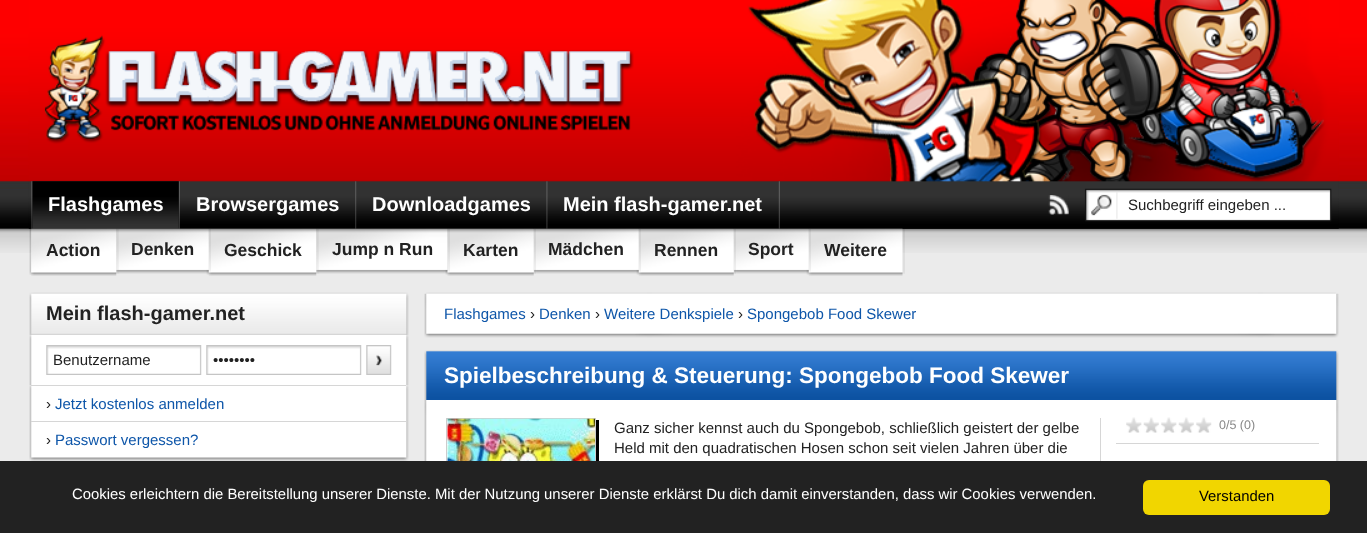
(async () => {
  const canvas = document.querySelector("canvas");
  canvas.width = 1367;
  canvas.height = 533;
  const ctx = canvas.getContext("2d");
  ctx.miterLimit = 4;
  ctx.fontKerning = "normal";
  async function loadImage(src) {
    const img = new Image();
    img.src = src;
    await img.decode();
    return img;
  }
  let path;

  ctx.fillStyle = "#ebebeb";
  ctx.fillRect(0, 0, 1367, 533);
  ctx.drawImage(await loadImage("img/1.png"), 0, 0, 1367, 253);
  ctx.drawImage(await loadImage("img/2.png"), 28, 0, 1311, 229);
  ctx.drawImage(await loadImage("img/3.png"), 31, 181, 2, 48);
  ctx.drawImage(await loadImage("img/4.png"), 178, 181, 2, 48);
  ctx.drawImage(await loadImage("img/5.png"), 32, 181, 147, 48);
  ctx.drawImage(await loadImage("img/6.png"), 355, 181, 2, 48);
  ctx.drawImage(await loadImage("img/7.png"), 546, 181, 2, 48);
  ctx.drawImage(await loadImage("img/8.png"), 778, 181, 2, 48);
  ctx.drawImage(await loadImage("img/9.png"), 1048, 195, 21, 20);
  ctx.drawImage(await loadImage("img/10.png"), 29, 229, 3, 46);
  ctx.drawImage(await loadImage("img/13.png"), 115, 229, 2, 44);
  ctx.drawImage(await loadImage("img/16.png"), 206, 229, 3, 46);
  ctx.drawImage(await loadImage("img/13.png"), 315, 229, 2, 44);
  ctx.drawImage(await loadImage("img/21.png"), 445, 229, 3, 46);
  ctx.drawImage(await loadImage("img/24.png"), 532, 229, 2, 44);
  ctx.drawImage(await loadImage("img/16.png"), 636, 229, 3, 46);
  ctx.drawImage(await loadImage("img/24.png"), 732, 229, 2, 44);
  ctx.drawImage(await loadImage("img/16.png"), 806, 229, 3, 46);
  ctx.drawImage(await loadImage("img/28.png"), 808, 228, 95, 48);
  ctx.drawImage(await loadImage("img/27.png"), 733, 228, 76, 46);
  ctx.drawImage(await loadImage("img/26.png"), 638, 228, 96, 48);
  ctx.drawImage(await loadImage("img/25.png"), 533, 228, 106, 46);
  ctx.drawImage(await loadImage("img/22.png"), 447, 228, 87, 48);
  ctx.drawImage(await loadImage("img/19.png"), 316, 228, 132, 46);
  ctx.drawImage(await loadImage("img/17.png"), 208, 228, 109, 48);
  ctx.drawImage(await loadImage("img/14.png"), 116, 228, 93, 46);
  ctx.drawImage(await loadImage("img/11.png"), 31, 228, 86, 48);
  ctx.drawImage(await loadImage("img/12.png"), 116, 229, 3, 45);
  ctx.drawImage(await loadImage("img/15.png"), 209, 229, 2, 43);
  ctx.drawImage(await loadImage("img/18.png"), 316, 229, 3, 45);
  ctx.drawImage(await loadImage("img/20.png"), 447, 229, 3, 43);
  ctx.drawImage(await loadImage("img/23.png"), 534, 229, 2, 45);
  ctx.drawImage(await loadImage("img/15.png"), 639, 229, 2, 43);
  ctx.drawImage(await loadImage("img/23.png"), 734, 229, 2, 45);
  ctx.drawImage(await loadImage("img/15.png"), 809, 229, 2, 43);
  ctx.drawImage(await loadImage("img/29.png"), 902, 229, 3, 45);
  ctx.drawImage(await loadImage("img/30.png"), 29, 292, 380, 43);
  ctx.drawImage(await loadImage("img/31.png"), 29, 335, 380, 50);
  ctx.drawImage(await loadImage("img/32.png"), 46, 345, 156, 30);
  ctx.drawImage(await loadImage("img/32.png"), 206, 345, 156, 30);
  ctx.drawImage(await loadImage("img/33.png"), 366, 345, 26, 30);
  ctx.drawImage(await loadImage("img/34.png"), 29, 385, 380, 73);
  ctx.fillStyle = "#d6d6d6";
  ctx.fillRect(31, 385, 375, 1);
  ctx.fillRect(31, 421, 375, 1);
  ctx.drawImage(await loadImage("img/35.png"), 29, 457, 380, 4);
  ctx.drawImage(await loadImage("img/36.png"), 426, 292, 910, 2);
  ctx.drawImage(await loadImage("img/37.png"), 424, 293, 915, 41);
  ctx.drawImage(await loadImage("img/38.png"), 424, 333, 915, 5);
  ctx.drawImage(await loadImage("img/39.png"), 424, 350, 915, 50);
  ctx.drawImage(await loadImage("img/40.png"), 424, 400, 915, 61);
  ctx.fillStyle = "#000000";
  path = new Path2D("M449 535V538H599V420H596V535Z");
  ctx.fill(path);
  ctx.strokeStyle = "#cccccc";
  ctx.strokeRect(446.5, 418.5, 149, 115);
  ctx.drawImage(await loadImage("img/41.png"), 447, 418, 148, 43);
  ctx.fillStyle = "#d6d6d6";
  ctx.fillRect(1100, 418, 1, 43);
  ctx.fillRect(1116, 443, 203, 1);
  ctx.drawImage(await loadImage("img/42.png"), 1126, 417, 86, 16);
  ctx.fillStyle = "#222222";
  ctx.fillRect(0, 461, 1367, 72);
  ctx.fillStyle = "#f1d600";
  ctx.beginPath();
  ctx.roundRect(1143, 480, 187, 35, 6);
  ctx.fill();
  ctx.font = "bold 20px Liberation Sans";
  ctx.fillStyle = "#ffffff";
  for (const [text, x, y] of [
    ["Flashgames", 48, 211],
    ["Browsergames", 196, 211],
    ["Downloadgames", 372, 211],
    ["Mein flash-gamer.net", 563, 211],
  ]) {
    ctx.fillText(text, x, y);
  }
  ctx.font = "15px Liberation Sans";
  ctx.fillStyle = "#222222";
  ctx.fillText("Suchbegriff eingeben ...", 1128, 210);
  ctx.font = "bold 17.5px Liberation Sans";
  for (const [text, x, y] of [
    ["Action", 46, 256],
    ["Denken", 131, 255],
    ["Geschick", 224, 256],
    ["Jump n Run", 332, 255],
    ["Karten", 463, 256],
    ["Mädchen", 548, 255],
    ["Rennen", 654, 256],
    ["Sport", 748, 255],
    ["Weitere", 824, 256],
  ]) {
    ctx.fillText(text, x, y);
  }
  ctx.font = "bold 20px Liberation Sans";
  ctx.fillText("Mein flash-gamer.net", 46, 320);
  ctx.font = "15px Liberation Sans";
  for (const [text, x, y] of [
    ["Benutzername", 53, 365],
    ["••••••••", 213, 365],
    ["›", 46, 409],
  ]) {
    ctx.fillText(text, x, y);
  }
  ctx.fillStyle = "#0e56a9";
  ctx.fillText("Jetzt kostenlos anmelden", 55, 409);
  ctx.fillStyle = "#222222";
  ctx.fillText("›", 46, 445);
  ctx.fillStyle = "#0e56a9";
  ctx.fillText("Passwort vergessen?", 55, 445);
  ctx.fillText("Flashgames", 444, 319);
  ctx.fillStyle = "#222222";
  ctx.fillText("›", 530, 319);
  ctx.fillStyle = "#0e56a9";
  ctx.fillText("Denken", 539, 319);
  ctx.fillStyle = "#222222";
  ctx.fillText("›", 595, 319);
  ctx.fillStyle = "#0e56a9";
  ctx.fillText("Weitere Denkspiele", 604, 319);
  ctx.fillStyle = "#222222";
  ctx.fillText("›", 738, 319);
  ctx.fillStyle = "#0e56a9";
  ctx.fillText("Spongebob Food Skewer", 747, 319);
  ctx.font = "bold 22.5px Liberation Sans";
  ctx.fillStyle = "#ffffff";
  ctx.fillText("Spielbeschreibung & Steuerung: Spongebob Food Skewer", 444, 383);
  ctx.font = "15px Liberation Sans";
  ctx.fillStyle = "#222222";
  ctx.fillText("Ganz sicher kennst auch du Spongebob, schließlich geistert der gelbe", 614, 433);
  ctx.fillText("Held mit den quadratischen Hosen schon seit vielen Jahren über die", 614, 453);
  ctx.font = "12.5px Liberation Sans";
  ctx.fillStyle = "#888888";
  ctx.fillText("0/5 (0)", 1219, 429);
  ctx.font = "14.88px Liberation Sans";
  ctx.fillStyle = "#ffffff";
  ctx.fillText("Cookies erleichtern die Bereitstellung unserer Dienste. Mit der Nutzung unserer Dienste erklärst Du dich damit einverstanden, dass wir Cookies verwenden.", 72, 499);
  ctx.fillStyle = "#000000";
  ctx.fillText("Verstanden", 1199, 501);
})();
